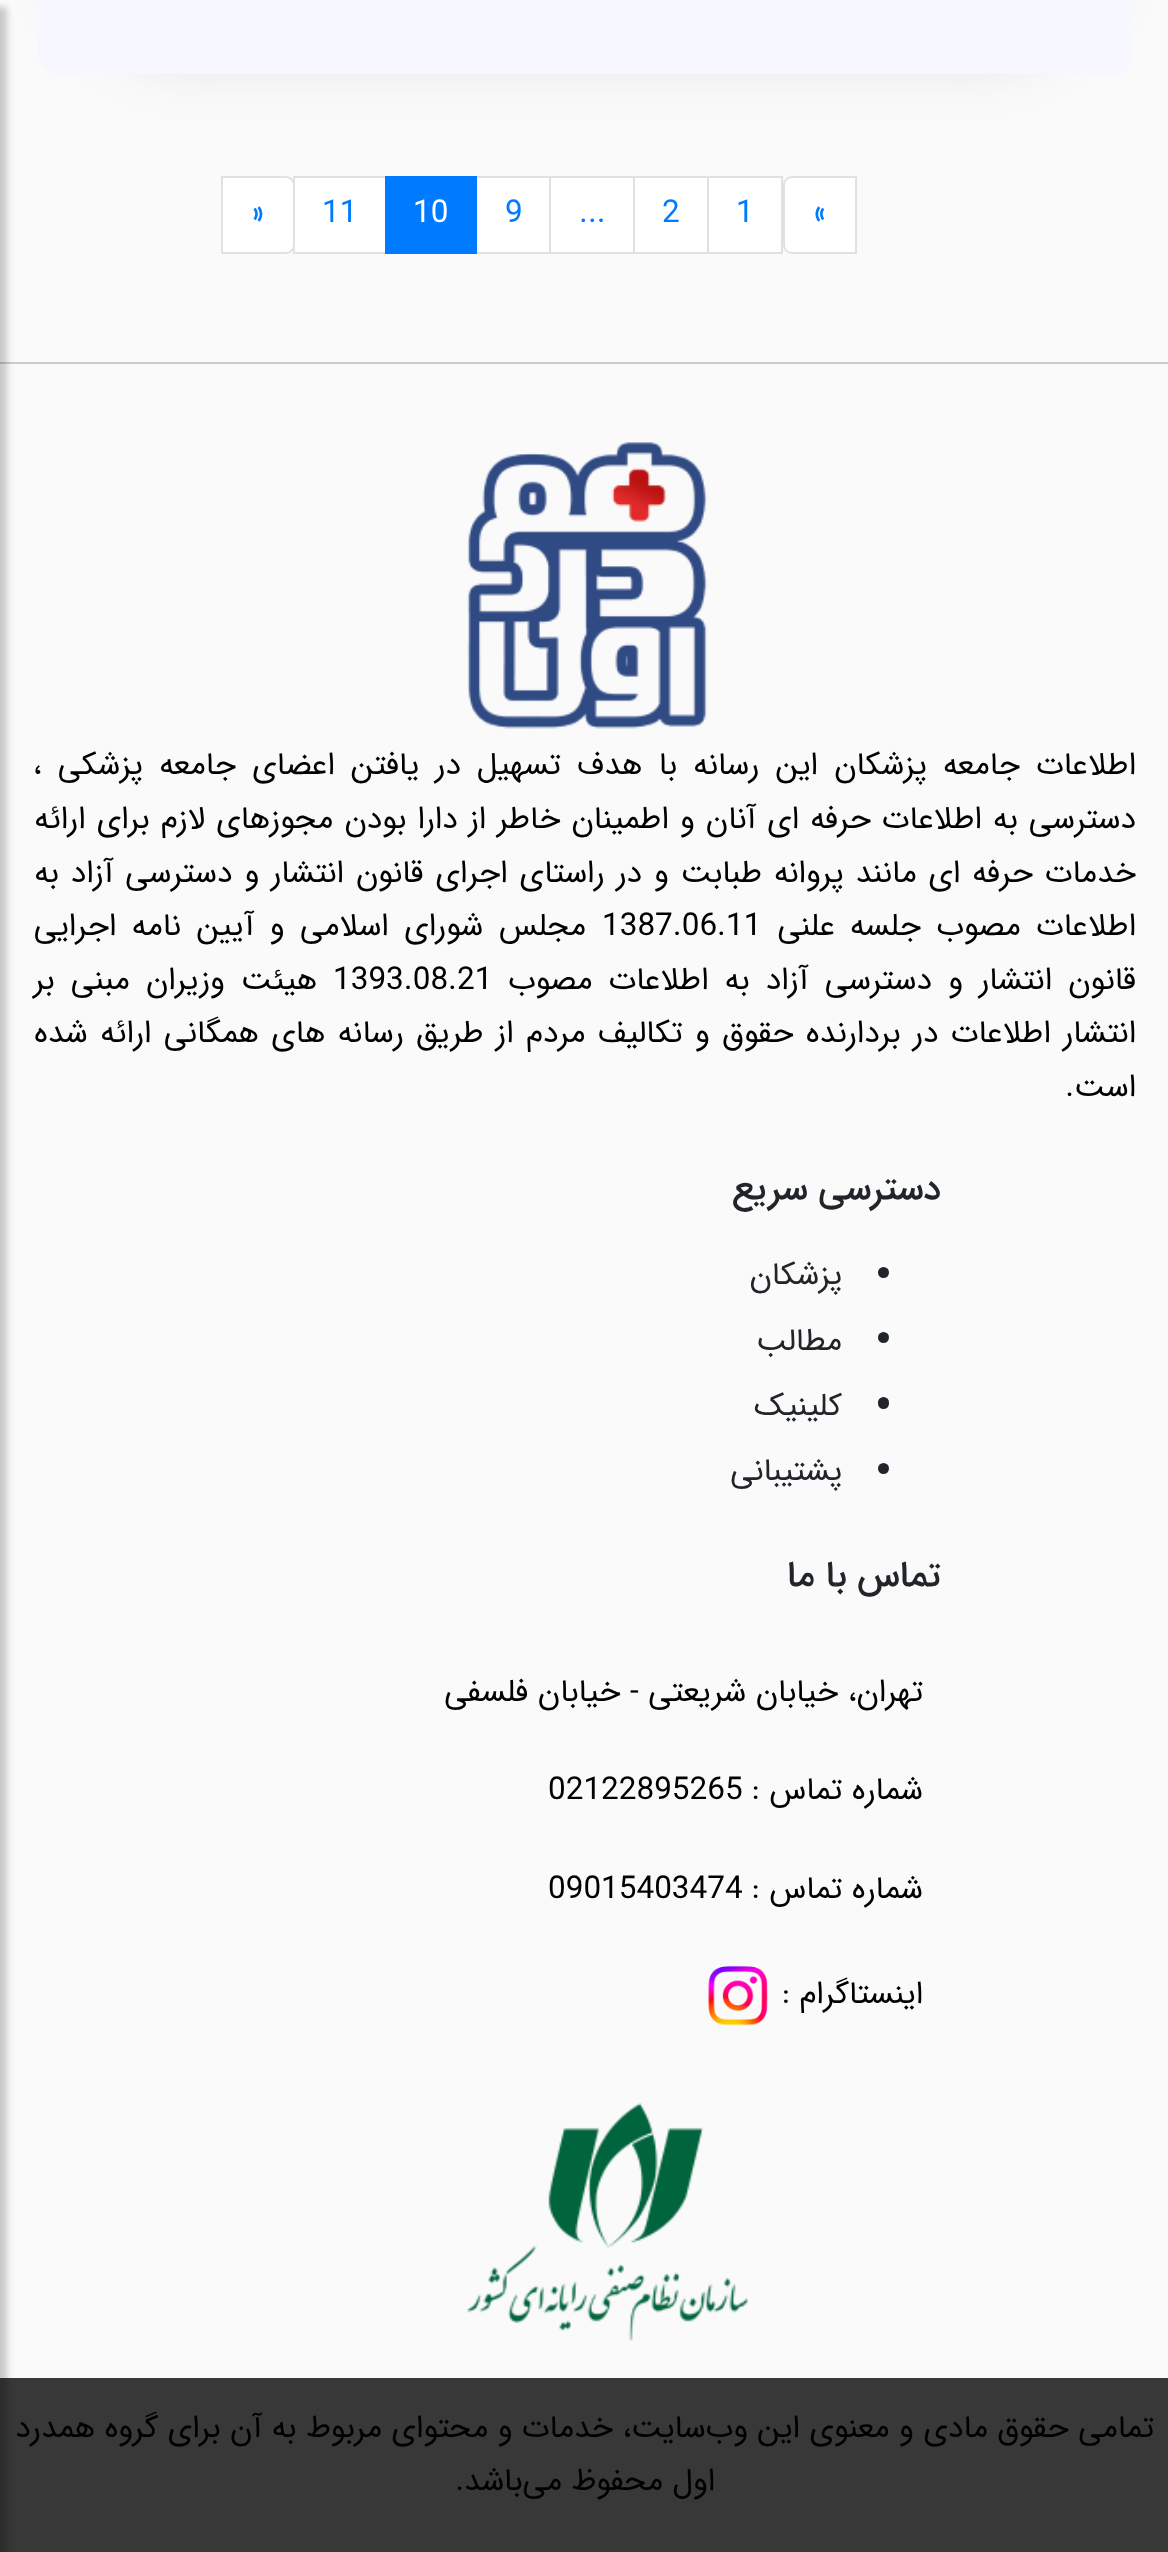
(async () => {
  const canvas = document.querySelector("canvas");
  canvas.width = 1168;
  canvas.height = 2552;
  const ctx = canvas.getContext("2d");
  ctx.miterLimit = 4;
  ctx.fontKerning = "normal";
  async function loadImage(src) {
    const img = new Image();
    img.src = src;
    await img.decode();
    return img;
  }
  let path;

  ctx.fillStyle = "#fafafa";
  ctx.fillRect(0, 0, 1168, 2552);
  ctx.fillStyle = "rgba(107, 107, 107, 0.12)";
  ctx.filter = "blur(22.5px)";
  ctx.beginPath();
  ctx.roundRect(38, -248, 1094, 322, 180);
  ctx.fill();
  ctx.filter = "none";
  ctx.fillStyle = "#f7f8ff";
  path = new Path2D("M218-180H1114C1124-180 1132-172 1132-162V56C1132 66 1124 74 1114 74H56C46 74 38 66 38 56V0C38-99.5 118.5-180 218-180Z");
  ctx.fill(path);
  ctx.fillStyle = "#ffffff";
  ctx.beginPath();
  ctx.roundRect(784, 177, 72, 76, [8, 0, 0, 8]);
  ctx.fill();
  ctx.strokeStyle = "#dee2e6";
  ctx.lineWidth = 2;
  ctx.stroke();
  ctx.beginPath();
  ctx.rect(708, 177, 74, 76);
  ctx.fill();
  ctx.stroke();
  ctx.fillRect(635, 178, 72, 74);
  ctx.strokeRect(633, 177, 75, 76);
  ctx.beginPath();
  ctx.rect(550, 177, 84, 76);
  ctx.fill();
  ctx.stroke();
  ctx.beginPath();
  ctx.rect(476, 177, 74, 76);
  ctx.fill();
  ctx.stroke();
  ctx.beginPath();
  ctx.rect(294, 177, 92, 76);
  ctx.fill();
  ctx.stroke();
  ctx.fillStyle = "#007bff";
  ctx.fillRect(385, 176, 92, 78);
  ctx.fillStyle = "#ffffff";
  ctx.beginPath();
  ctx.roundRect(222, 177, 72, 76, [0, 8, 8, 0]);
  ctx.fill();
  ctx.stroke();
  ctx.fillStyle = "#cccccc";
  ctx.fillRect(0, 362, 1168, 2);
  ctx.fillStyle = "#383838";
  ctx.fillRect(0, 2378, 1168, 174);
  ctx.fillStyle = "rgba(0, 0, 0, 0.2)";
  ctx.filter = "blur(3.5px)";
  ctx.beginPath();
  ctx.rect(-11, 7, 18, 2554);
  ctx.fill();
  ctx.filter = "none";
  ctx.drawImage(await loadImage("img/1.png"), 467, 442, 241, 287);
  ctx.fillStyle = "#212529";
  ctx.beginPath();
  ctx.arc(883.5, 1272.5, 5.5, 0, Math.PI * 2);
  ctx.fill();
  ctx.beginPath();
  ctx.arc(883.5, 1337.5, 5.5, 0, Math.PI * 2);
  ctx.fill();
  ctx.beginPath();
  ctx.roundRect(878, 1397, 11, 12, 5.5);
  ctx.fill();
  ctx.beginPath();
  ctx.arc(883.5, 1468.5, 5.5, 0, Math.PI * 2);
  ctx.fill();
  ctx.drawImage(await loadImage("img/2.png"), 708, 1966, 60, 60);
  ctx.drawImage(await loadImage("img/3.png"), 467, 2103, 281, 238);
  ctx.font = "31.5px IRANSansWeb";
  ctx.fillStyle = "#007bff";
  for (const [text, x, y] of [
    ["«", 812, 222],
    ["1", 736, 222],
    ["2", 662, 222],
    ["...", 579, 222],
    ["9", 505, 222],
  ]) {
    ctx.fillText(text, x, y);
  }
  ctx.fillStyle = "#ffffff";
  ctx.fillText("10", 413, 222);
  ctx.fillStyle = "#007bff";
  ctx.fillText("11", 322, 222);
  ctx.fillText("»", 250, 222);
  ctx.wordSpacing = "6.75px";
  ctx.direction = "rtl";
  ctx.fillStyle = "#000000";
  ctx.fillText("اطلاعات جامعه پزشکان این رسانه با هدف تسهیل در یافتن اعضای جامعه پزشکی ،", 1136, 774);
  ctx.wordSpacing = "1.6px";
  ctx.fillText("دسترسی به اطلاعات حرفه ای آنان و اطمینان خاطر از دارا بودن مجوزهای لازم برای ارائه", 1136, 828);
  ctx.wordSpacing = "2.4px";
  ctx.fillText("خدمات حرفه ای مانند پروانه طبابت و در راستای اجرای قانون انتشار و دسترسی آزاد به", 1136, 882);
  ctx.wordSpacing = "6px";
  ctx.fillText("اطلاعات مصوب جلسه", 1136, 935);
  ctx.wordSpacing = "0px";
  ctx.fillText("علنی", 835, 935);
  ctx.direction = "ltr";
  ctx.fillText("1387.06.11", 602, 935);
  ctx.wordSpacing = "6px";
  ctx.direction = "rtl";
  ctx.fillText("مجلس شورای اسلامی و آیین نامه اجرایی", 586, 935);
  ctx.wordSpacing = "6.75px";
  ctx.fillText("قانون انتشار و دسترسی آزاد به اطلاعات مصوب", 1136, 989);
  ctx.wordSpacing = "0px";
  ctx.direction = "ltr";
  ctx.fillText("1393.08.21", 333, 989);
  ctx.wordSpacing = "6.75px";
  ctx.direction = "rtl";
  ctx.fillText("هیئت وزیران مبنی بر", 317, 989);
  ctx.wordSpacing = "2.9px";
  ctx.fillText("انتشار اطلاعات در بردارنده حقوق و تکالیف مردم از طریق رسانه های همگانی ارائه شده", 1136, 1042);
  ctx.wordSpacing = "0px";
  ctx.fillText("است.", 1136, 1096);
  ctx.font = "500 36px IRANSansWeb";
  ctx.fillStyle = "#212529";
  ctx.fillText("دسترسی سریع", 941, 1199);
  ctx.font = "31.5px IRANSansWeb";
  for (const [text, x, y] of [
    ["پزشکان", 842, 1284],
    ["مطالب", 842, 1350],
    ["کلینیک", 842, 1415],
    ["پشتیبانی", 842, 1480],
  ]) {
    ctx.fillText(text, x, y);
  }
  ctx.font = "500 36px IRANSansWeb";
  ctx.fillText("تماس با ما", 941, 1586);
  ctx.font = "31.5px IRANSansWeb";
  ctx.fillStyle = "#000000";
  ctx.fillText("تهران، خیابان شریعتی - خیابان فلسفی", 923, 1701);
  ctx.fillText("شماره تماس :", 923, 1799);
  ctx.direction = "ltr";
  ctx.fillText("02122895265", 548, 1799);
  ctx.direction = "rtl";
  ctx.fillText("شماره تماس :", 923, 1898);
  ctx.direction = "ltr";
  ctx.fillText("09015403474", 548, 1898);
  ctx.direction = "rtl";
  for (const [text, x, y] of [
    ["اینستاگرام :", 923, 2003],
    ["تمامی حقوق مادی و معنوی این وب‌سایت، خدمات و محتوای مربوط به آن برای گروه همدرد", 1154, 2437],
    ["اول محفوظ می‌باشد.", 715, 2490],
  ]) {
    ctx.fillText(text, x, y);
  }
})();
